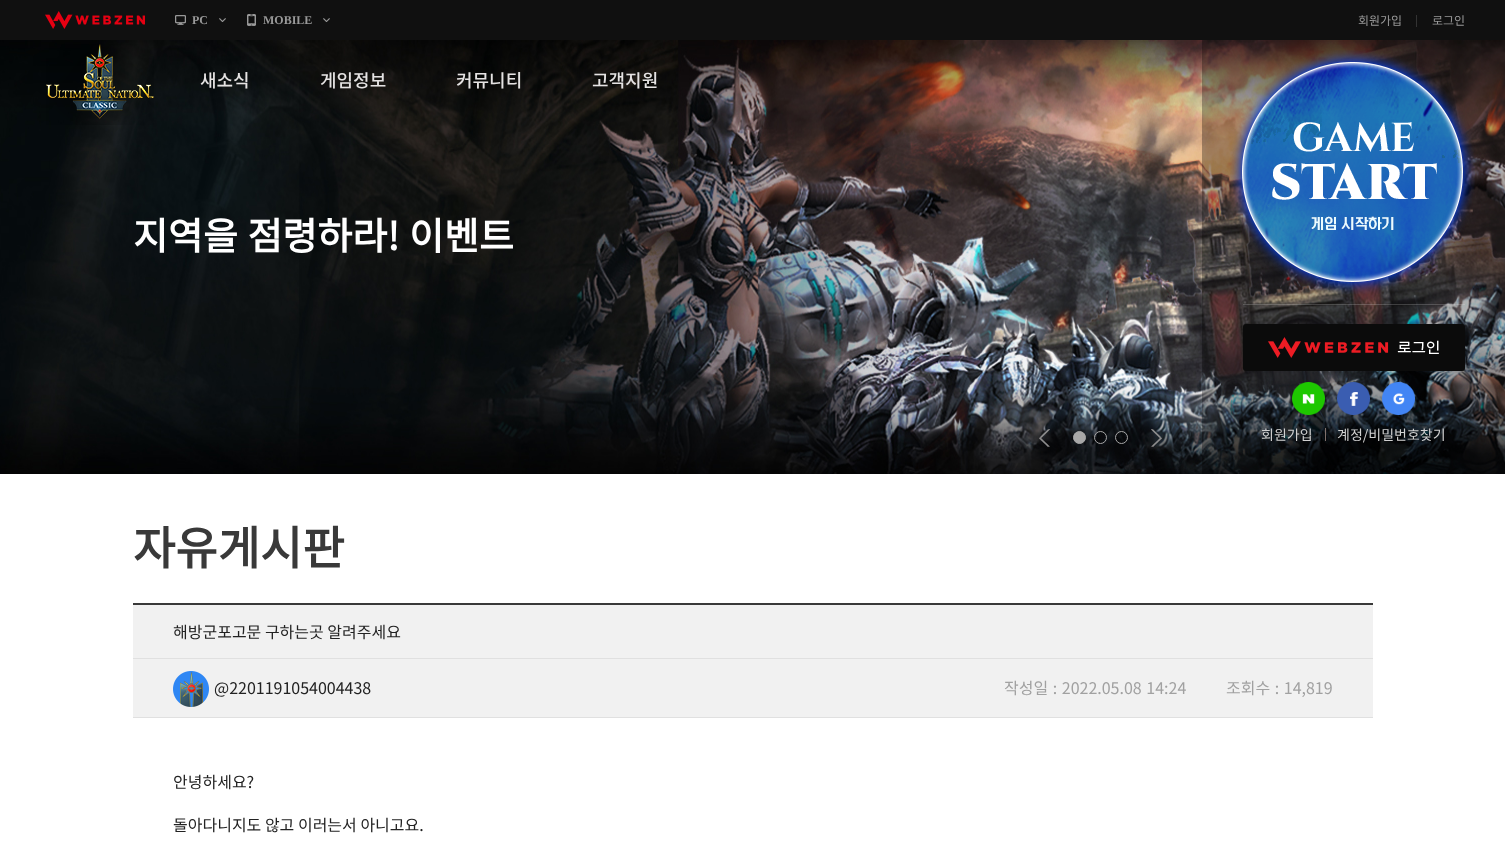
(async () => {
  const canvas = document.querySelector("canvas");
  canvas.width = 1505;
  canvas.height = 865;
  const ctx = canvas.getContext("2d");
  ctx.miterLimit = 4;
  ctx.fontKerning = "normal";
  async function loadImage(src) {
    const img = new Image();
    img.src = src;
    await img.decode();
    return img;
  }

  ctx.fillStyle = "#ffffff";
  ctx.fillRect(0, 0, 1505, 865);
  ctx.fillStyle = "#101010";
  ctx.fillRect(0, 0, 1505, 40);
  ctx.drawImage(await loadImage("img/1.png"), 45, 11, 100, 18);
  ctx.drawImage(await loadImage("img/2.png"), 175, 15, 11, 10);
  ctx.drawImage(await loadImage("img/3.png"), 219, 18, 7, 4);
  ctx.drawImage(await loadImage("img/4.png"), 247, 14, 9, 12);
  ctx.drawImage(await loadImage("img/3.png"), 323, 18, 7, 4);
  ctx.fillStyle = "#333333";
  ctx.fillRect(1416, 15, 1, 12);
  ctx.drawImage(await loadImage("img/6.png"), 0, 40, 1505, 434);
  ctx.drawImage(await loadImage("img/5.png"), 46, 44, 108, 81);
  ctx.drawImage(await loadImage("img/7.png"), 1039, 429, 11, 18);
  ctx.fillStyle = "#a8a8a8";
  ctx.beginPath();
  ctx.arc(1079.5, 437.5, 6, 0, Math.PI * 2);
  ctx.fill();
  ctx.strokeStyle = "#a8a8a8";
  ctx.stroke();
  ctx.beginPath();
  ctx.arc(1100.5, 437.5, 6, 0, Math.PI * 2);
  ctx.stroke();
  ctx.beginPath();
  ctx.arc(1121.5, 437.5, 6, 0, Math.PI * 2);
  ctx.stroke();
  ctx.drawImage(await loadImage("img/8.png"), 1151, 429, 11, 18);
  for (const [x, y, w, h, color] of [
    [133, 605, 1240, 53, "#f1f1f1"],
    [133, 603, 1240, 2, "#393939"],
    [133, 658, 1240, 1, "#e0e0e0"],
    [133, 659, 1240, 58, "#f1f1f1"],
    [133, 717, 1240, 1, "#e0e0e0"],
  ]) {
    ctx.fillStyle = color;
    ctx.fillRect(x, y, w, h);
  }
  ctx.drawImage(await loadImage("img/9.png"), 173, 671, 36, 36);
  ctx.fillStyle = "rgba(0, 0, 0, 0.3)";
  ctx.fillRect(1202, 40, 303, 434);
  ctx.drawImage(await loadImage("img/10.png"), 1230, 50, 245, 244);
  ctx.fillStyle = "rgba(235, 235, 235, 0.2)";
  ctx.fillRect(1243, 304, 222, 1);
  ctx.fillStyle = "#0b0b0b";
  ctx.beginPath();
  ctx.roundRect(1243, 324, 222, 47, 3);
  ctx.fill();
  ctx.drawImage(await loadImage("img/11.png"), 1268, 337, 171, 21);
  ctx.drawImage(await loadImage("img/12.png"), 1292, 382, 33, 33);
  ctx.drawImage(await loadImage("img/13.png"), 1337, 382, 33, 33);
  ctx.drawImage(await loadImage("img/14.png"), 1382, 382, 33, 33);
  ctx.fillStyle = "#80716c";
  ctx.fillRect(1325, 428, 1, 13);
  ctx.font = "bold 12px Liberation Serif";
  ctx.fillStyle = "#999999";
  ctx.fillText("PC", 192, 24);
  ctx.fillText("MOBILE", 263, 24);
  ctx.font = "12px Noto Sans KR";
  ctx.fillText("회원가입", 1358, 25);
  ctx.fillText("로그인", 1432, 25);
  ctx.font = "500 18px Noto Sans KR";
  ctx.fillStyle = "#e5e3e3";
  for (const [text, x, y] of [
    ["새소식", 200, 87],
    ["게임정보", 320, 87],
    ["커뮤니티", 456, 87],
    ["고객지원", 592, 87],
  ]) {
    ctx.fillText(text, x, y);
  }
  ctx.wordSpacing = "1px";
  ctx.font = "bold 38px Noto Sans KR";
  ctx.fillStyle = "#ffffff";
  ctx.fillText("지역을 점령하라! 이벤트", 133, 250);
  ctx.wordSpacing = "0px";
  ctx.font = "bold 46px Noto Sans KR";
  ctx.fillStyle = "#393939";
  ctx.fillText("자유게시판", 133, 565);
  ctx.font = "16px Noto Sans KR";
  ctx.fillStyle = "#222222";
  ctx.fillText("해방군포고문 구하는곳 알려주세요", 173, 638);
  ctx.fillText("@2201191054004438", 214, 694);
  ctx.wordSpacing = "1px";
  ctx.fillStyle = "#a1a1a1";
  ctx.fillText("작성일 : 2022.05.08 14:24", 1004, 694);
  ctx.fillText("조회수 : 14,819", 1226, 694);
  ctx.wordSpacing = "0px";
  ctx.fillStyle = "#222222";
  ctx.fillText("안녕하세요?", 173, 788);
  ctx.fillText("돌아다니지도 않고 이러는서 아니고요.", 173, 831);
  ctx.font = "14px Noto Sans KR";
  ctx.fillStyle = "#d1d1d1";
  ctx.fillText("회원가입", 1261, 440);
  ctx.fillText("계정/비밀번호찾기", 1337, 440);
})();
